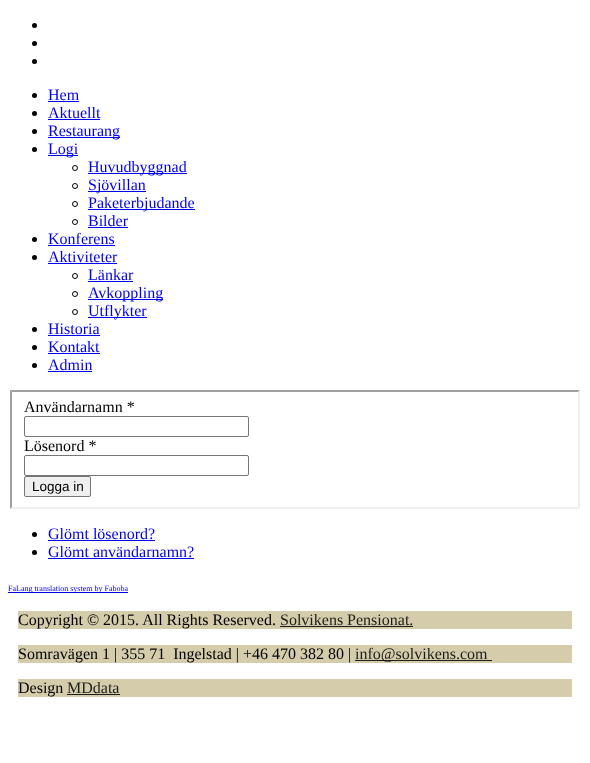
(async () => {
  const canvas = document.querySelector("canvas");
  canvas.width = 590;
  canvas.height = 763;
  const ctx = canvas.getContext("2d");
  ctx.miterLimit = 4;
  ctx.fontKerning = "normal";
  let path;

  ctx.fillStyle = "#ffffff";
  ctx.fillRect(0, 0, 590, 763);
  ctx.fillStyle = "#000000";
  ctx.beginPath();
  ctx.arc(34.5, 25.5, 2.5, 0, Math.PI * 2);
  ctx.fill();
  ctx.beginPath();
  ctx.arc(34.5, 43.5, 2.5, 0, Math.PI * 2);
  ctx.fill();
  ctx.beginPath();
  ctx.arc(34.5, 61.5, 2.5, 0, Math.PI * 2);
  ctx.fill();
  ctx.beginPath();
  ctx.arc(34.5, 95.5, 2.5, 0, Math.PI * 2);
  ctx.fill();
  ctx.fillStyle = "#0000ee";
  ctx.fillRect(48, 101, 31, 1);
  ctx.fillStyle = "#000000";
  ctx.beginPath();
  ctx.arc(34.5, 113.5, 2.5, 0, Math.PI * 2);
  ctx.fill();
  ctx.fillStyle = "#0000ee";
  ctx.fillRect(48, 119, 52, 1);
  ctx.fillStyle = "#000000";
  ctx.beginPath();
  ctx.arc(34.5, 131.5, 2.5, 0, Math.PI * 2);
  ctx.fill();
  ctx.fillStyle = "#0000ee";
  ctx.fillRect(48, 137, 72, 1);
  ctx.fillStyle = "#000000";
  ctx.beginPath();
  ctx.arc(34.5, 149.5, 2.5, 0, Math.PI * 2);
  ctx.fill();
  ctx.fillStyle = "#0000ee";
  ctx.fillRect(48, 155, 30, 1);
  ctx.beginPath();
  ctx.arc(75, 168, 2.5, 0, Math.PI * 2);
  ctx.strokeStyle = "#000000";
  ctx.stroke();
  ctx.fillRect(88, 173, 99, 1);
  ctx.beginPath();
  ctx.arc(75, 186, 2.5, 0, Math.PI * 2);
  ctx.stroke();
  ctx.fillRect(88, 191, 58, 1);
  ctx.beginPath();
  ctx.arc(75, 204, 2.5, 0, Math.PI * 2);
  ctx.stroke();
  ctx.fillRect(88, 209, 107, 1);
  ctx.beginPath();
  ctx.arc(75, 222, 2.5, 0, Math.PI * 2);
  ctx.stroke();
  ctx.fillRect(88, 227, 40, 1);
  ctx.fillStyle = "#000000";
  ctx.beginPath();
  ctx.arc(34.5, 239.5, 2.5, 0, Math.PI * 2);
  ctx.fill();
  ctx.fillStyle = "#0000ee";
  ctx.fillRect(48, 245, 67, 1);
  ctx.fillStyle = "#000000";
  ctx.beginPath();
  ctx.arc(34.5, 257.5, 2.5, 0, Math.PI * 2);
  ctx.fill();
  ctx.fillStyle = "#0000ee";
  ctx.fillRect(48, 263, 69, 1);
  ctx.beginPath();
  ctx.arc(75, 276, 2.5, 0, Math.PI * 2);
  ctx.stroke();
  ctx.fillRect(88, 281, 45, 1);
  ctx.beginPath();
  ctx.arc(75, 294, 2.5, 0, Math.PI * 2);
  ctx.stroke();
  ctx.fillRect(88, 299, 75, 1);
  ctx.beginPath();
  ctx.arc(75, 312, 2.5, 0, Math.PI * 2);
  ctx.stroke();
  ctx.fillRect(88, 317, 59, 1);
  ctx.fillStyle = "#000000";
  ctx.beginPath();
  ctx.arc(34.5, 329.5, 2.5, 0, Math.PI * 2);
  ctx.fill();
  ctx.fillStyle = "#0000ee";
  ctx.fillRect(48, 335, 52, 1);
  ctx.fillStyle = "#000000";
  ctx.beginPath();
  ctx.arc(34.5, 347.5, 2.5, 0, Math.PI * 2);
  ctx.fill();
  ctx.fillStyle = "#0000ee";
  ctx.fillRect(48, 353, 52, 1);
  ctx.fillStyle = "#000000";
  ctx.beginPath();
  ctx.arc(34.5, 365.5, 2.5, 0, Math.PI * 2);
  ctx.fill();
  ctx.fillStyle = "#0000ee";
  ctx.fillRect(48, 371, 44, 1);
  ctx.fillStyle = "#9f9f9f";
  path = new Path2D("M10 390H580L578 392H12Z");
  ctx.fill(path);
  ctx.fillStyle = "#efefef";
  path = new Path2D("M580 390V509L578 507V392Z");
  ctx.fill(path);
  path = new Path2D("M580 509H10L12 507H578Z");
  ctx.fill(path);
  ctx.fillStyle = "#9f9f9f";
  path = new Path2D("M10 509V390L12 392V507Z");
  ctx.fill(path);
  ctx.beginPath();
  ctx.roundRect(24.5, 416.5, 224, 20, 1.5);
  ctx.strokeStyle = "#767676";
  ctx.stroke();
  ctx.beginPath();
  ctx.roundRect(24.5, 455.5, 224, 20, 1.5);
  ctx.stroke();
  ctx.fillStyle = "#efefef";
  ctx.beginPath();
  ctx.roundRect(24.5, 476.5, 66, 20, 1.5);
  ctx.fill();
  ctx.stroke();
  ctx.fillStyle = "#000000";
  ctx.beginPath();
  ctx.arc(34.5, 534.5, 2.5, 0, Math.PI * 2);
  ctx.fill();
  ctx.fillStyle = "#0000ee";
  ctx.fillRect(48, 540, 107, 1);
  ctx.fillStyle = "#000000";
  ctx.beginPath();
  ctx.arc(34.5, 552.5, 2.5, 0, Math.PI * 2);
  ctx.fill();
  for (const [x, y, w, h, color] of [
    [48, 558, 146, 1, "#0000ee"],
    [8, 592, 120, 1, "#0000ee"],
    [18, 611, 554, 18, "#d4ccaa"],
    [280, 626, 133, 1, "#1b1e1a"],
    [18, 645, 554, 18, "#d4ccaa"],
    [355, 660, 137, 1, "#1b1e1a"],
    [18, 679, 554, 18, "#d4ccaa"],
    [67, 694, 53, 1, "#1b1e1a"],
  ]) {
    ctx.fillStyle = color;
    ctx.fillRect(x, y, w, h);
  }
  ctx.font = "16px Liberation Serif";
  ctx.fillStyle = "#0000ee";
  for (const [text, x, y] of [
    ["Hem", 48, 100],
    ["Aktuellt", 48, 118],
    ["Restaurang", 48, 136],
    ["Logi", 48, 154],
    ["Huvudbyggnad", 88, 172],
    ["Sjövillan", 88, 190],
    ["Paketerbjudande", 88, 208],
    ["Bilder", 88, 226],
    ["Konferens", 48, 244],
    ["Aktiviteter", 48, 262],
    ["Länkar", 88, 280],
    ["Avkoppling", 88, 298],
    ["Utflykter", 88, 316],
    ["Historia", 48, 334],
    ["Kontakt", 48, 352],
    ["Admin", 48, 370],
  ]) {
    ctx.fillText(text, x, y);
  }
  ctx.fillStyle = "#000000";
  ctx.fillText("Användarnamn *", 24, 412);
  ctx.fillText("Lösenord *", 24, 451);
  ctx.font = "13.5px Liberation Sans";
  ctx.fillText("Logga in", 32, 491);
  ctx.font = "16px Liberation Serif";
  ctx.fillStyle = "#0000ee";
  ctx.fillText("Glömt lösenord?", 48, 539);
  ctx.fillText("Glömt användarnamn?", 48, 557);
  ctx.font = "8px Liberation Serif";
  ctx.fillText("FaLang translation system by Faboba", 8, 591);
  ctx.font = "16px Liberation Serif";
  ctx.fillStyle = "#000000";
  ctx.fillText("Copyright © 2015. All Rights Reserved.", 18, 625);
  ctx.fillStyle = "#1b1e1a";
  ctx.fillText("Solvikens Pensionat.", 280, 625);
  ctx.fillStyle = "#000000";
  ctx.fillText("Somravägen 1 | 355 71  Ingelstad | +46 470 382 80 |", 18, 659);
  ctx.fillStyle = "#1b1e1a";
  ctx.fillText("info@solvikens.com", 355, 659);
  ctx.fillStyle = "#000000";
  ctx.fillText("Design", 18, 693);
  ctx.fillStyle = "#1b1e1a";
  ctx.fillText("MDdata", 67, 693);
})();
